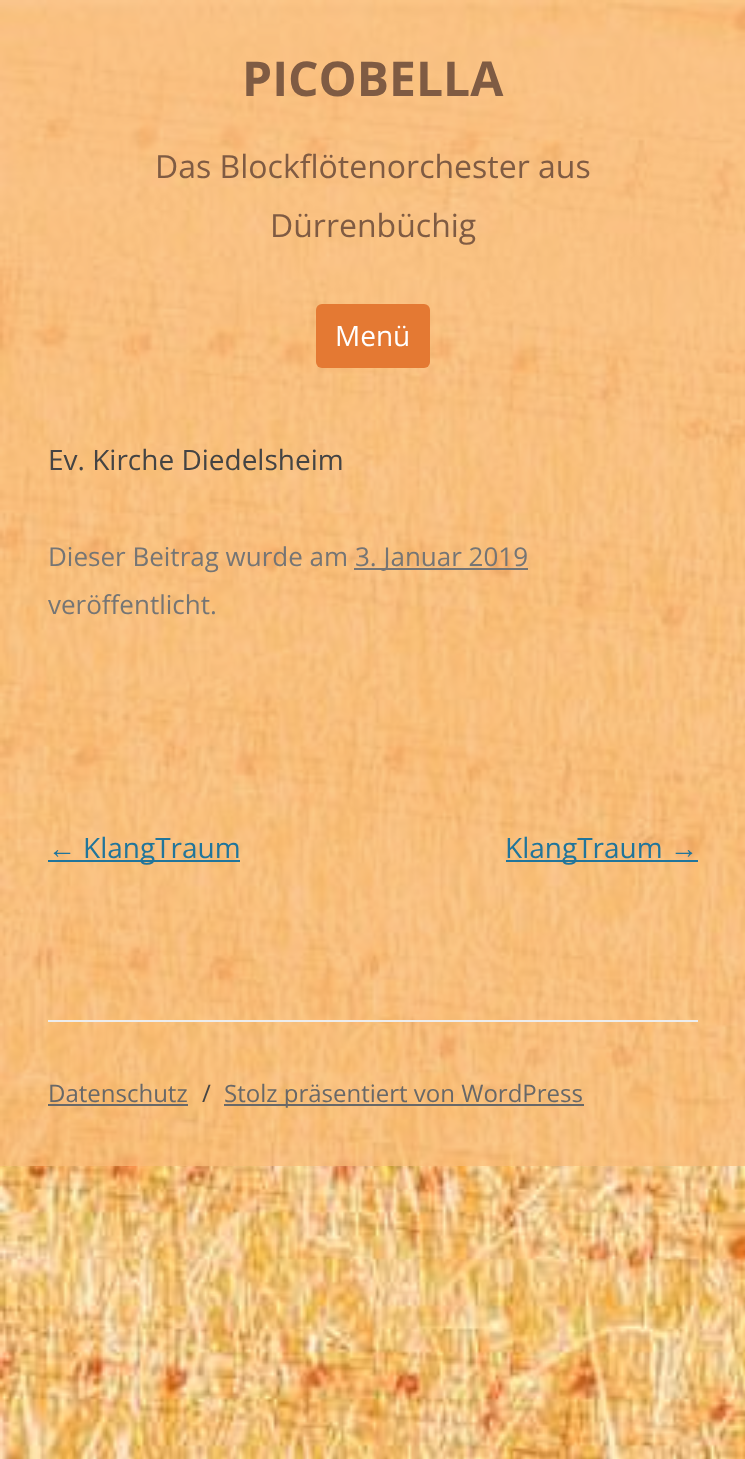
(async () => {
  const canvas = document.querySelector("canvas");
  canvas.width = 745;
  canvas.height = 1459;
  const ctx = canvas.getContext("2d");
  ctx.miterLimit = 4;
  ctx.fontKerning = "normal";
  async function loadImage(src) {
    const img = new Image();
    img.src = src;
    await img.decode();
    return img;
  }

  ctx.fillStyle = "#ffffff";
  ctx.fillRect(0, 0, 745, 1459);
  ctx.drawImage(await loadImage("img/1.png"), 0, 0, 745, 1459);
  ctx.fillStyle = "rgba(249, 187, 119, 0.75)";
  ctx.fillRect(0, 0, 745, 1166);
  ctx.fillStyle = "#e47933";
  ctx.beginPath();
  ctx.roundRect(316, 304, 114, 64, 6);
  ctx.fill();
  for (const [x, y, w, h, color] of [
    [354, 568, 174, 2, "#757575"],
    [48, 860, 192, 2, "#21759b"],
    [506, 860, 192, 2, "#21759b"],
    [48, 1020, 650, 2, "#ededed"],
    [48, 1104, 140, 2, "#686868"],
    [224, 1104, 360, 2, "#686868"],
  ]) {
    ctx.fillStyle = color;
    ctx.fillRect(x, y, w, h);
  }
  ctx.font = "bold 48px Open Sans";
  ctx.fillStyle = "#7f5b43";
  ctx.fillText("PICOBELLA", 242, 96);
  ctx.font = "32px Open Sans";
  ctx.fillText("Das Blockflötenorchester aus", 155, 178);
  ctx.fillText("Dürrenbüchig", 270, 237);
  ctx.font = "28px Open Sans";
  ctx.fillStyle = "#ffffff";
  ctx.fillText("Menü", 335, 346);
  ctx.fillStyle = "#444444";
  ctx.fillText("Ev. Kirche Diedelsheim", 48, 470);
  ctx.font = "26px Open Sans";
  ctx.fillStyle = "#757575";
  for (const [text, x, y] of [
    ["Dieser Beitrag wurde am", 48, 566],
    ["3. Januar 2019", 355, 566],
    ["veröffentlicht.", 48, 614],
  ]) {
    ctx.fillText(text, x, y);
  }
  ctx.font = "28px Liberation Sans";
  ctx.fillStyle = "#21759b";
  ctx.fillText("←", 48, 858);
  ctx.font = "28px Open Sans";
  ctx.fillText("KlangTraum", 83, 858);
  ctx.fillText("KlangTraum", 505, 858);
  ctx.font = "28px Liberation Sans";
  ctx.fillText("→", 670, 858);
  ctx.font = "24px Open Sans";
  ctx.fillStyle = "#686868";
  ctx.fillText("Datenschutz", 48, 1102);
  ctx.fillStyle = "#444444";
  ctx.fillText("/", 202, 1102);
  ctx.fillStyle = "#686868";
  ctx.fillText("Stolz präsentiert von WordPress", 224, 1102);
})();
